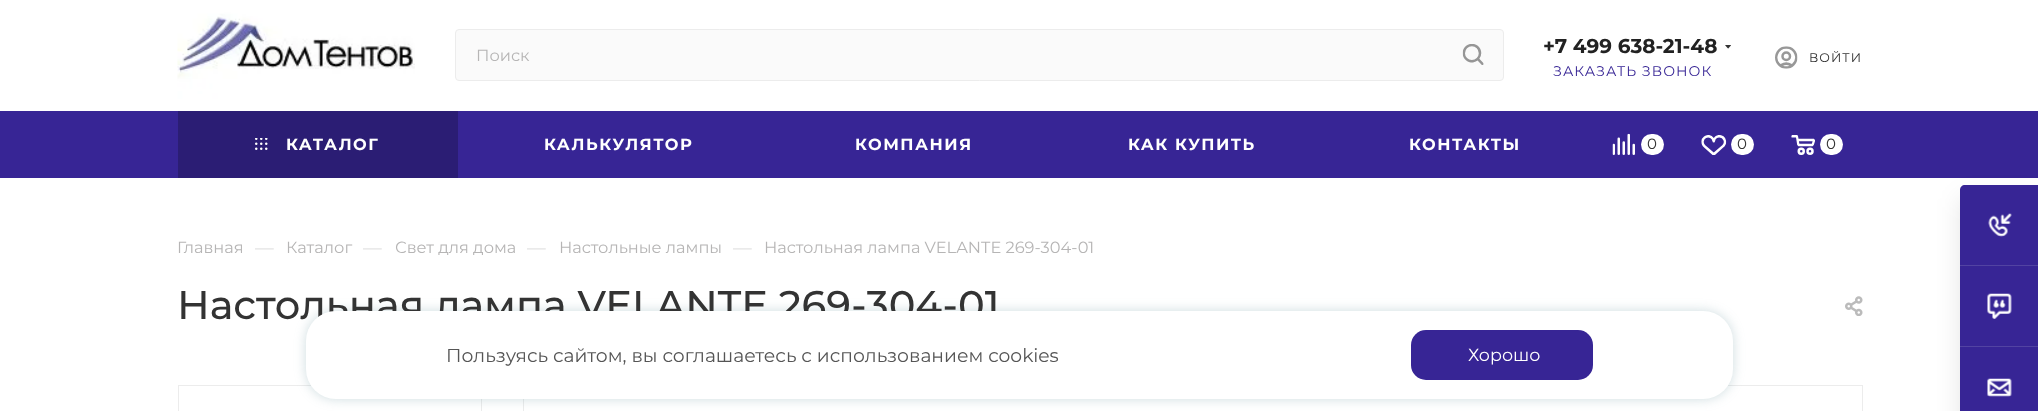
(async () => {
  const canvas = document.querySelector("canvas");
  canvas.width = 2038;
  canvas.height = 411;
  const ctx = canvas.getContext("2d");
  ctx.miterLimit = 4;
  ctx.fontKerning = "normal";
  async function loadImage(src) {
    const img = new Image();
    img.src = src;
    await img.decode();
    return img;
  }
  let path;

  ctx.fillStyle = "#ffffff";
  ctx.fillRect(0, 0, 2038, 411);
  ctx.drawImage(await loadImage("img/1.png"), 177, 0, 238, 101);
  ctx.fillStyle = "#fafafa";
  ctx.beginPath();
  ctx.roundRect(455.5, 29.5, 1048, 51, 3.5);
  ctx.fill();
  ctx.strokeStyle = "#ececec";
  ctx.stroke();
  ctx.drawImage(await loadImage("img/2.png"), 1462, 44, 22, 21);
  ctx.drawImage(await loadImage("img/3.png"), 1725, 45, 6, 4);
  ctx.drawImage(await loadImage("img/4.png"), 1775, 46, 23, 23);
  ctx.fillStyle = "#372595";
  ctx.fillRect(0, 111, 2038, 67);
  ctx.fillStyle = "#2b1d74";
  ctx.fillRect(178, 111, 280, 67);
  ctx.drawImage(await loadImage("img/5.png"), 255, 138, 13, 12);
  ctx.drawImage(await loadImage("img/6.png"), 1612, 133, 23, 22);
  ctx.fillStyle = "#ffffff";
  ctx.beginPath();
  ctx.roundRect(1641, 134, 23, 21, 10.5);
  ctx.fill();
  ctx.drawImage(await loadImage("img/7.png"), 1701, 135, 26, 20);
  ctx.beginPath();
  ctx.roundRect(1731, 134, 23, 21, 10.5);
  ctx.fill();
  ctx.drawImage(await loadImage("img/8.png"), 1791, 135, 24, 20);
  ctx.beginPath();
  ctx.roundRect(1820, 134, 23, 21, 10.5);
  ctx.fill();
  ctx.drawImage(await loadImage("img/9.png"), 1845, 296, 18, 20);
  for (const [x, y, w, h, color] of [
    [178, 385, 134, 1, "#ececec"],
    [481, 399, 1, 12, "#ececec"],
    [178, 386, 1, 25, "#ececec"],
  ]) {
    ctx.fillStyle = color;
    ctx.fillRect(x, y, w, h);
  }
  ctx.strokeRect(523.5, 385.5, 1339, 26);
  ctx.fillStyle = "rgba(0, 0, 0, 0.1)";
  ctx.filter = "blur(12.5px)";
  ctx.beginPath();
  ctx.roundRect(1960, 198, 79, 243, 5);
  ctx.fill();
  ctx.filter = "none";
  ctx.fillStyle = "#372595";
  path = new Path2D("M1965 185H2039V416H1965C1962 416 1960 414 1960 411V190C1960 187 1962 185 1965 185Z");
  ctx.fill(path);
  ctx.fillStyle = "#5243a2";
  ctx.fillRect(1960, 265, 78, 1);
  ctx.drawImage(await loadImage("img/10.png"), 1988, 213, 24, 24);
  ctx.fillRect(1960, 346, 78, 1);
  ctx.drawImage(await loadImage("img/11.png"), 1987, 293, 25, 26);
  ctx.drawImage(await loadImage("img/12.png"), 1987, 378, 25, 19);
  ctx.fillStyle = "rgba(94, 138, 150, 0.3)";
  ctx.filter = "blur(6px)";
  ctx.beginPath();
  ctx.roundRect(306, 311, 1427, 88, 30);
  ctx.fill();
  ctx.filter = "none";
  ctx.font = "16.25px Montserrat";
  ctx.fillStyle = "#b6b5b5";
  ctx.fillText("Поиск", 476, 61);
  ctx.font = "bold 20px Montserrat";
  ctx.fillStyle = "#222222";
  ctx.fillText("+7 499 638-21-48", 1543, 53);
  ctx.letterSpacing = "1px";
  ctx.font = "14px Montserrat";
  ctx.fillStyle = "#372595";
  ctx.fillText("ЗАКАЗАТЬ ЗВОНОК", 1553, 76);
  ctx.font = "12.5px Montserrat";
  ctx.fillStyle = "#333333";
  ctx.fillText("ВОЙТИ", 1809, 62);
  ctx.letterSpacing = "1.5px";
  ctx.font = "bold 16.25px Montserrat";
  ctx.fillStyle = "#ffffff";
  for (const [text, x, y] of [
    ["КАТАЛОГ", 286, 150],
    ["КАЛЬКУЛЯТОР", 544, 150],
    ["КОМПАНИЯ", 855, 150],
    ["КАК КУПИТЬ", 1128, 150],
    ["КОНТАКТЫ", 1409, 150],
  ]) {
    ctx.fillText(text, x, y);
  }
  ctx.letterSpacing = "0px";
  ctx.font = "15px Montserrat";
  ctx.fillStyle = "#333333";
  for (const [text, x, y] of [
    ["0", 1647, 149],
    ["0", 1737, 149],
    ["0", 1826, 149],
  ]) {
    ctx.fillText(text, x, y);
  }
  ctx.font = "16.25px Montserrat";
  ctx.fillStyle = "#b6b5b5";
  ctx.fillText("Главная", 177, 253);
  ctx.font = "18.75px Montserrat";
  ctx.fillStyle = "#dddddd";
  ctx.fillText("—", 255, 254);
  ctx.font = "16.25px Montserrat";
  ctx.fillStyle = "#b6b5b5";
  ctx.fillText("Каталог", 286, 253);
  ctx.font = "18.75px Montserrat";
  ctx.fillStyle = "#dddddd";
  ctx.fillText("—", 363, 254);
  ctx.font = "16.25px Montserrat";
  ctx.fillStyle = "#b6b5b5";
  ctx.fillText("Свет для дома", 395, 253);
  ctx.font = "18.75px Montserrat";
  ctx.fillStyle = "#dddddd";
  ctx.fillText("—", 527, 254);
  ctx.font = "16.25px Montserrat";
  ctx.fillStyle = "#b6b5b5";
  ctx.fillText("Настольные лампы", 559, 253);
  ctx.font = "18.75px Montserrat";
  ctx.fillStyle = "#dddddd";
  ctx.fillText("—", 733, 254);
  ctx.font = "16.25px Montserrat";
  ctx.fillStyle = "#b6b5b5";
  ctx.fillText("Настольная лампа VELANTE 269-304-01", 764, 253);
  ctx.font = "500 40px Montserrat";
  ctx.fillStyle = "#333333";
  ctx.fillText("Настольная лампа VELANTE 269-304-01", 177, 319);
  ctx.fillStyle = "#ffffff";
  ctx.beginPath();
  ctx.roundRect(306, 311, 1427, 88, 30);
  ctx.fill();
  ctx.font = "18.75px Montserrat";
  ctx.fillStyle = "#555555";
  ctx.fillText("Пользуясь сайтом, вы соглашаетесь с использованием cookies", 446, 362);
  ctx.fillStyle = "#372595";
  ctx.beginPath();
  ctx.roundRect(1411, 330, 182, 50, 15);
  ctx.fill();
  ctx.font = "17.5px Montserrat";
  ctx.fillStyle = "#ffffff";
  ctx.fillText("Хорошо", 1468, 361);
})();
